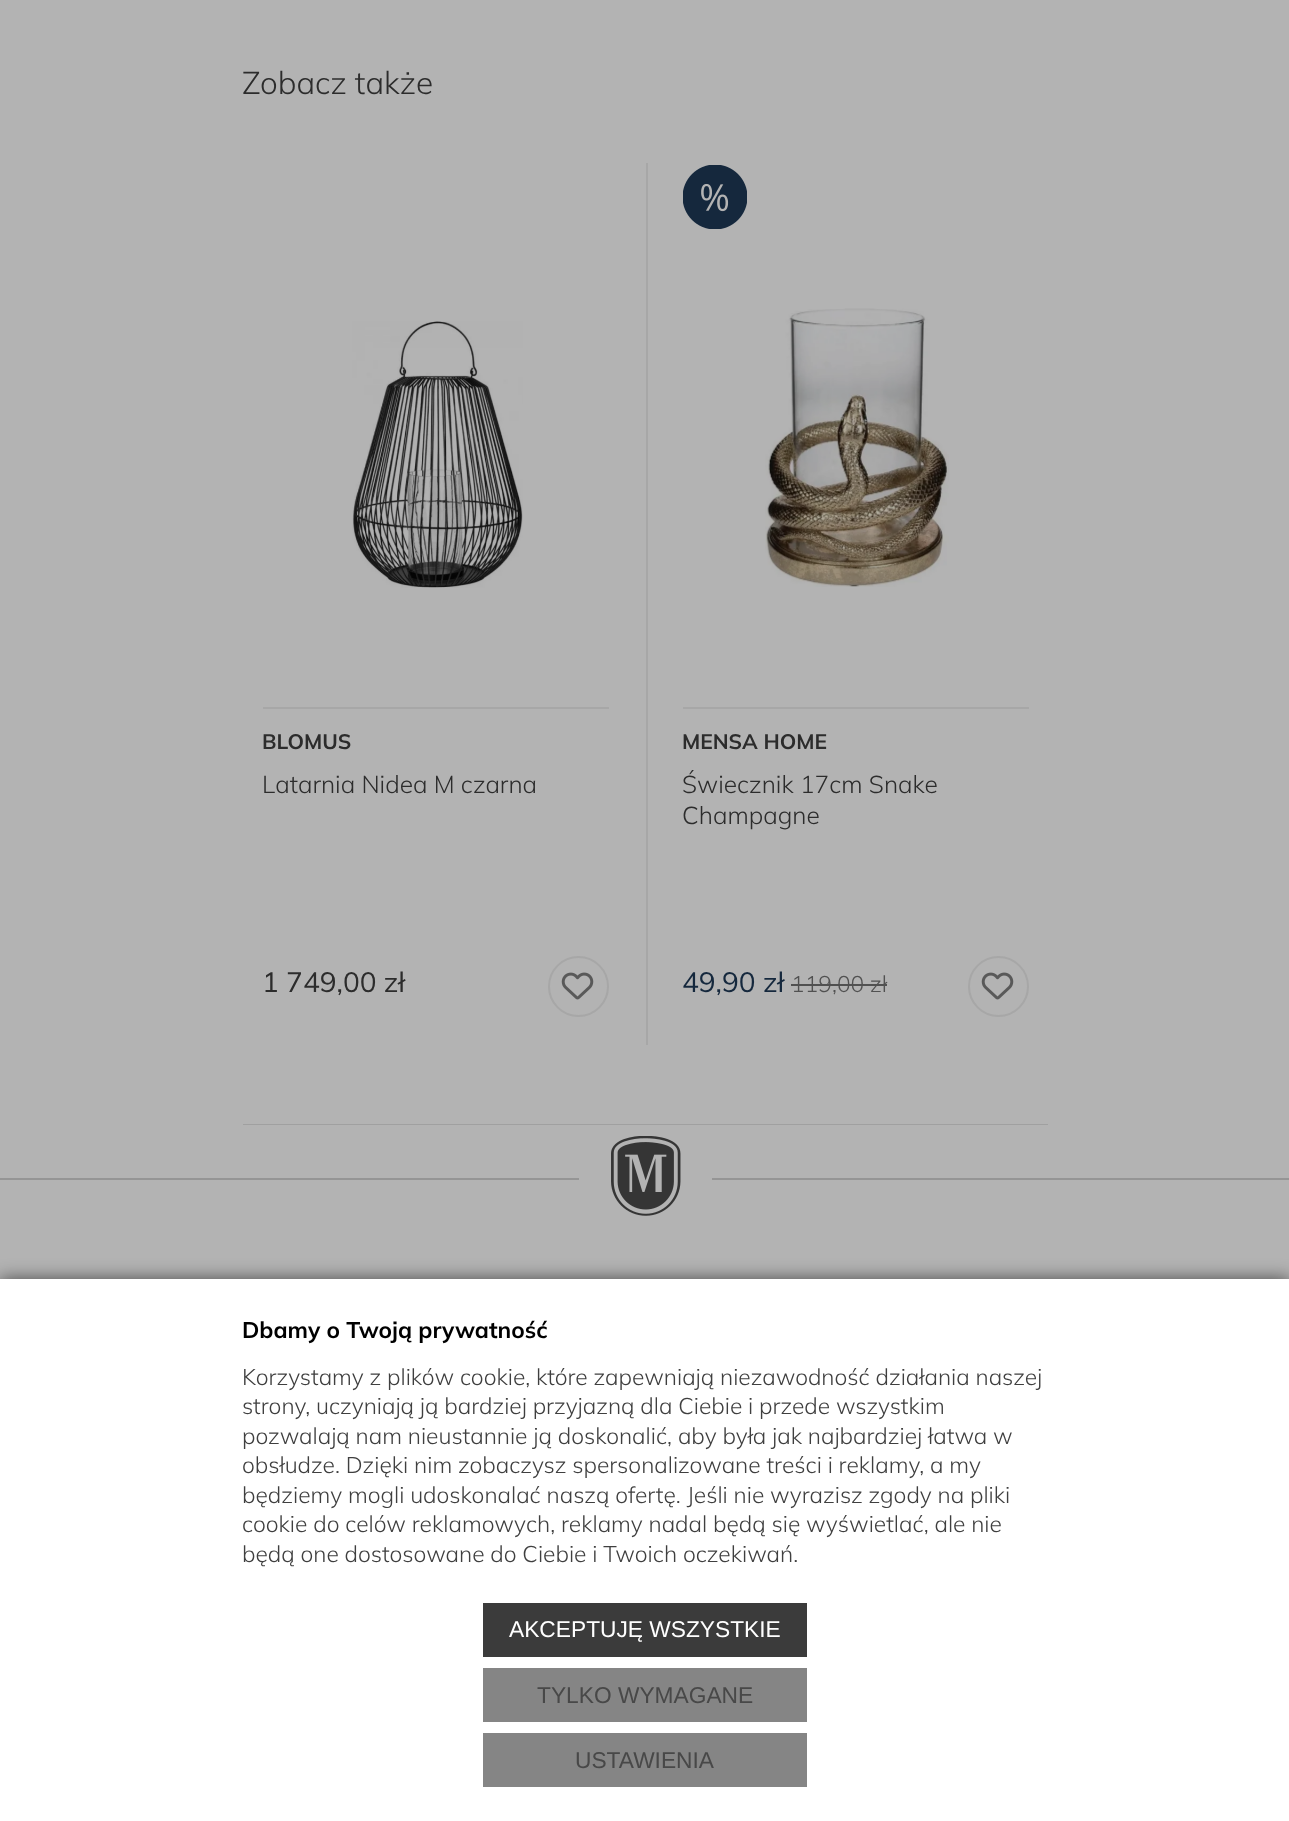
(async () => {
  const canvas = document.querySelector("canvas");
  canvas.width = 1289;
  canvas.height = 1821;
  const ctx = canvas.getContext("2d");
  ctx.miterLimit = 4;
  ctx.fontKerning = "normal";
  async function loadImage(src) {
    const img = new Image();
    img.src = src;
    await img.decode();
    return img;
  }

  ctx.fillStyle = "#b3b3b3";
  ctx.fillRect(0, 0, 1289, 1821);
  ctx.fillStyle = "#a0a0a0";
  ctx.fillRect(243, 1124, 805, 1);
  ctx.drawImage(await loadImage("img/1.png"), 352, 321, 171, 267);
  ctx.fillStyle = "#a7a7a7";
  ctx.fillRect(263, 707, 346, 2);
  ctx.beginPath();
  ctx.arc(578.5, 986.5, 29.5, 0, Math.PI * 2);
  ctx.strokeStyle = "#a7a7a7";
  ctx.lineWidth = 2;
  ctx.stroke();
  ctx.drawImage(await loadImage("img/2.png"), 561, 972, 33, 28);
  ctx.fillRect(646, 163, 2, 882);
  ctx.drawImage(await loadImage("img/3.png"), 683, 165, 64, 64);
  ctx.drawImage(await loadImage("img/4.png"), 765, 308, 184, 279);
  ctx.fillRect(683, 707, 346, 2);
  ctx.fillStyle = "#515151";
  ctx.fillRect(791, 984, 96, 2);
  ctx.beginPath();
  ctx.arc(998.5, 986.5, 29.5, 0, Math.PI * 2);
  ctx.stroke();
  ctx.drawImage(await loadImage("img/2.png"), 981, 972, 33, 28);
  ctx.fillStyle = "#959595";
  ctx.fillRect(0, 1178, 579, 2);
  ctx.drawImage(await loadImage("img/5.png"), 611, 1136, 70, 80);
  ctx.fillRect(712, 1178, 577, 2);
  ctx.fillStyle = "rgba(0, 0, 0, 0.6)";
  ctx.filter = "blur(9px)";
  ctx.beginPath();
  ctx.rect(0, 1279, 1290, 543);
  ctx.fill();
  ctx.filter = "none";
  for (const [x, y, w, h, color] of [
    [0, 1279, 1289, 542, "#ffffff"],
    [483, 1603, 324, 54, "#3b3b3b"],
    [483, 1668, 324, 54, "#858585"],
    [483, 1733, 324, 54, "#858585"],
  ]) {
    ctx.fillStyle = color;
    ctx.fillRect(x, y, w, h);
  }
  ctx.font = "300 31.5px Mulish";
  ctx.fillStyle = "#2c2c2c";
  ctx.fillText("Zobacz także", 242, 94);
  ctx.font = "bold 21px Mulish";
  ctx.fillText("BLOMUS", 262, 749);
  ctx.font = "300 24.5px Mulish";
  ctx.fillText("Latarnia Nidea M czarna", 262, 793);
  ctx.font = "28px Mulish";
  ctx.fillText("1 749,00 zł", 262, 992);
  ctx.font = "bold 21px Mulish";
  ctx.fillText("MENSA HOME", 682, 749);
  ctx.font = "300 24.5px Mulish";
  ctx.fillText("Świecznik 17cm Snake", 682, 793);
  ctx.fillText("Champagne", 682, 824);
  ctx.font = "28px Mulish";
  ctx.fillStyle = "#15283d";
  ctx.fillText("49,90 zł", 682, 992);
  ctx.font = "300 22.75px Mulish";
  ctx.fillStyle = "#515151";
  ctx.fillText("119,00 zł", 791, 992);
  ctx.font = "bold 22.75px Mulish";
  ctx.fillStyle = "#000000";
  ctx.fillText("Dbamy o Twoją prywatność", 242, 1338);
  ctx.font = "300 22.75px Mulish";
  ctx.fillStyle = "#3f3f3f";
  for (const [text, x, y] of [
    ["Korzystamy z plików cookie, które zapewniają niezawodność działania naszej", 242, 1385],
    ["strony, uczyniają ją bardziej przyjazną dla Ciebie i przede wszystkim", 242, 1414],
    ["pozwalają nam nieustannie ją doskonalić, aby była jak najbardziej łatwa w", 242, 1444],
    ["obsłudze. Dzięki nim zobaczysz spersonalizowane treści i reklamy, a my", 242, 1473],
    ["będziemy mogli udoskonalać naszą ofertę. Jeśli nie wyrazisz zgody na pliki", 242, 1503],
    ["cookie do celów reklamowych, reklamy nadal będą się wyświetlać, ale nie", 242, 1532],
    ["będą one dostosowane do Ciebie i Twoich oczekiwań.", 242, 1562],
  ]) {
    ctx.fillText(text, x, y);
  }
  ctx.font = "22.75px Liberation Sans";
  ctx.fillStyle = "#ffffff";
  ctx.fillText("AKCEPTUJĘ WSZYSTKIE", 509, 1637);
  ctx.fillStyle = "#484848";
  ctx.fillText("TYLKO WYMAGANE", 537, 1703);
  ctx.fillText("USTAWIENIA", 575, 1768);
})();
